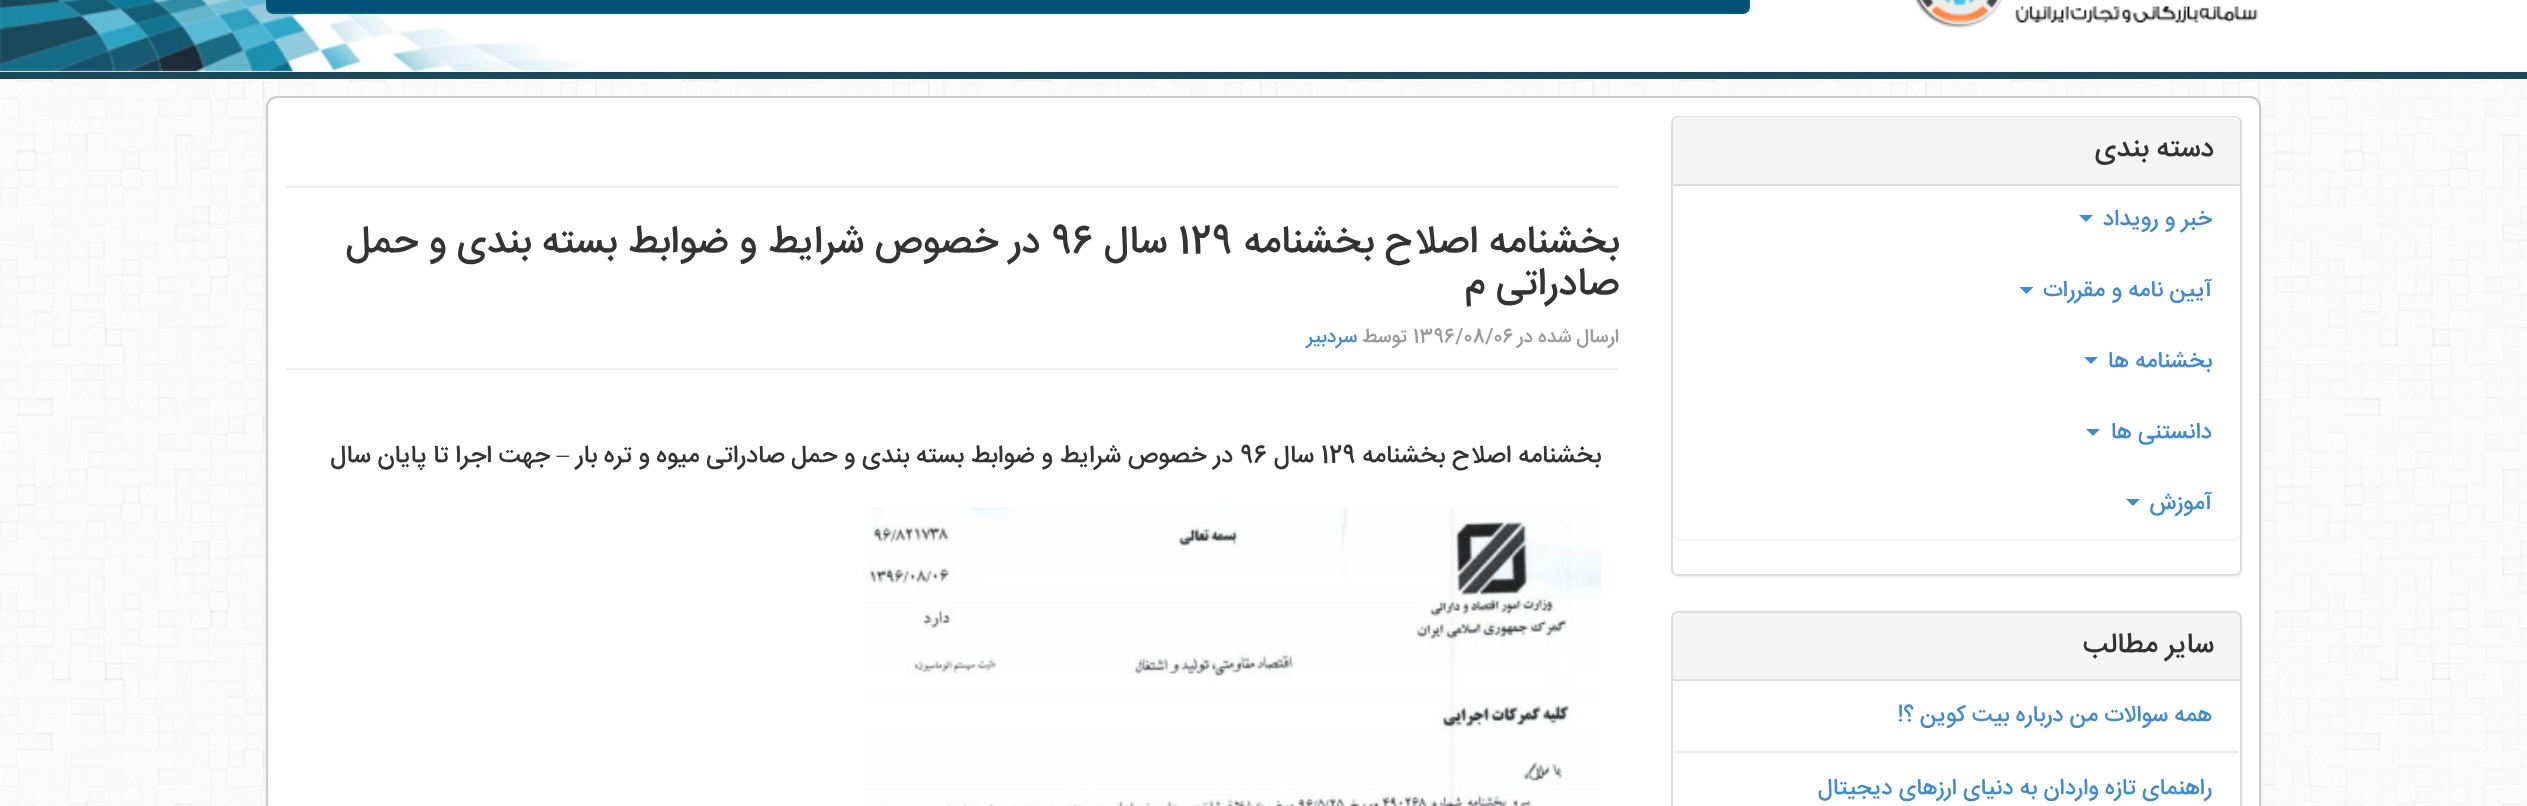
(async () => {
  const canvas = document.querySelector("canvas");
  canvas.width = 2527;
  canvas.height = 806;
  const ctx = canvas.getContext("2d");
  ctx.miterLimit = 4;
  ctx.fontKerning = "normal";
  async function loadImage(src) {
    const img = new Image();
    img.src = src;
    await img.decode();
    return img;
  }
  let path;

  ctx.fillStyle = "#ffffff";
  ctx.fillRect(0, 0, 2527, 806);
  ctx.drawImage(await loadImage("img/1.png"), 0, 79, 2527, 727);
  ctx.drawImage(await loadImage("img/2.png"), 0, 0, 585, 72);
  ctx.fillStyle = "#1a495b";
  ctx.fillRect(0, 72, 2527, 7);
  ctx.drawImage(await loadImage("img/3.png"), 1914, 0, 344, 28);
  ctx.fillStyle = "#004f76";
  ctx.beginPath();
  ctx.roundRect(267, -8, 1482, 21, 6);
  ctx.fill();
  ctx.strokeStyle = "#016270";
  ctx.lineWidth = 2;
  ctx.stroke();
  ctx.fillStyle = "rgba(0, 0, 0, 0.1)";
  ctx.filter = "blur(1px)";
  ctx.beginPath();
  ctx.roundRect(266, 98, 1995, 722, 11);
  ctx.fill();
  ctx.filter = "none";
  ctx.fillStyle = "#ffffff";
  ctx.beginPath();
  ctx.roundRect(268, 98, 1991, 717, 9);
  ctx.fill();
  ctx.beginPath();
  ctx.roundRect(267, 97, 1993, 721, 10);
  ctx.strokeStyle = "#cccccc";
  ctx.stroke();
  ctx.fillStyle = "rgba(0, 0, 0, 0.05)";
  ctx.filter = "blur(1px)";
  ctx.beginPath();
  ctx.roundRect(1671, 117, 571, 461, 7);
  ctx.fill();
  ctx.filter = "none";
  ctx.fillStyle = "#ffffff";
  ctx.beginPath();
  ctx.roundRect(1672, 117, 569, 458, 6);
  ctx.fill();
  ctx.strokeStyle = "#dddddd";
  ctx.stroke();
  ctx.fillStyle = "#f5f5f5";
  ctx.beginPath();
  ctx.roundRect(1673, 117, 567, 69, [5, 5, 0, 0]);
  ctx.fill();
  ctx.fillStyle = "#dddddd";
  ctx.fillRect(1673, 184, 567, 2);
  ctx.fillStyle = "rgba(0, 0, 0, 0.05)";
  ctx.filter = "blur(1px)";
  ctx.beginPath();
  ctx.roundRect(1673, 187, 567, 354, 7);
  ctx.fill();
  ctx.filter = "none";
  ctx.fillStyle = "#ffffff";
  ctx.beginPath();
  ctx.roundRect(1673, 186, 567, 353, 7);
  ctx.fill();
  ctx.fillStyle = "#428bca";
  path = new Path2D("M2079 215H2093L2086 222Z");
  ctx.fill(path);
  path = new Path2D("M2019.5 287H2033.5L2026.5 294Z");
  ctx.fill(path);
  path = new Path2D("M2084 357H2098L2091 364Z");
  ctx.fill(path);
  path = new Path2D("M2086 429H2100L2093 436Z");
  ctx.fill(path);
  path = new Path2D("M2126 499H2140L2133 506Z");
  ctx.fill(path);
  ctx.beginPath();
  ctx.roundRect(1672, 612, 569, 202, 6);
  ctx.stroke();
  ctx.fillStyle = "#f5f5f5";
  ctx.beginPath();
  ctx.roundRect(1673, 613, 567, 68, [5, 5, 0, 0]);
  ctx.fill();
  for (const [x, y, w, h, color] of [
    [1673, 679, 567, 2, "#dddddd"],
    [1675, 751, 563, 2, "#eeeeee"],
    [285, 368, 1334, 2, "#eeeeee"],
    [285, 186, 1334, 2, "#eeeeee"],
  ]) {
    ctx.fillStyle = color;
    ctx.fillRect(x, y, w, h);
  }
  ctx.drawImage(await loadImage("img/4.png"), 861, 507, 741, 299);
  ctx.direction = "rtl";
  ctx.font = "500 28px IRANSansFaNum";
  ctx.fillStyle = "#333333";
  ctx.fillText("دسته بندی", 2214, 156);
  ctx.font = "500 22.75px IRANSansFaNum";
  ctx.fillStyle = "#428bca";
  for (const [text, x, y] of [
    ["خبر و رویداد", 2212, 225],
    ["آیین نامه و مقررات", 2212, 296],
    ["بخشنامه ها", 2212, 367],
    ["دانستنی ها", 2212, 438],
    ["آموزش", 2212, 509],
  ]) {
    ctx.fillText(text, x, y);
  }
  ctx.font = "500 28px IRANSansFaNum";
  ctx.fillStyle = "#333333";
  ctx.fillText("سایر مطالب", 2214, 652);
  ctx.font = "500 22.75px IRANSansFaNum";
  ctx.fillStyle = "#428bca";
  ctx.fillText("همه سوالات من درباره بیت کوین ؟!", 2212, 721);
  ctx.fillText("راهنمای تازه واردان به دنیای ارزهای دیجیتال", 2212, 794);
  ctx.font = "500 38.5px IRANSansFaNum";
  ctx.fillStyle = "#333333";
  ctx.fillText("بخشنامه اصلاح بخشنامه", 1619, 252);
  ctx.direction = "ltr";
  ctx.fillText("129", 1178, 252);
  ctx.direction = "rtl";
  ctx.fillText("سال", 1167, 252);
  ctx.direction = "ltr";
  ctx.fillText("96", 1051, 252);
  ctx.direction = "rtl";
  ctx.fillText("در خصوص شرایط و ضوابط بسته بندی و حمل", 1040, 252);
  ctx.fillText("صادراتی م", 1619, 294);
  ctx.font = "500 19.5px IRANSansFaNum";
  ctx.fillStyle = "#999999";
  ctx.fillText("ارسال شده در", 1619, 342);
  ctx.direction = "ltr";
  ctx.fillText("1396/08/06", 1413, 342);
  ctx.direction = "rtl";
  ctx.fillText("توسط", 1407, 342);
  ctx.fillStyle = "#428bca";
  ctx.fillText("سردبیر", 1357, 342);
  ctx.font = "500 24.5px IRANSansFaNum";
  ctx.fillStyle = "#333333";
  ctx.fillText("بخشنامه اصلاح بخشنامه", 1601, 462);
  ctx.direction = "ltr";
  ctx.fillText("129", 1321, 462);
  ctx.direction = "rtl";
  ctx.fillText("سال", 1314, 462);
  ctx.direction = "ltr";
  ctx.fillText("96", 1240, 462);
  ctx.direction = "rtl";
  ctx.fillText("در خصوص شرایط و ضوابط بسته بندی و حمل صادراتی میوه و تره بار", 1233, 462);
  ctx.font = "24.5px Liberation Serif";
  ctx.fillText("–", 569, 462);
  ctx.font = "500 24.5px IRANSansFaNum";
  ctx.fillText("جهت اجرا تا پایان سال", 550, 462);
})();
